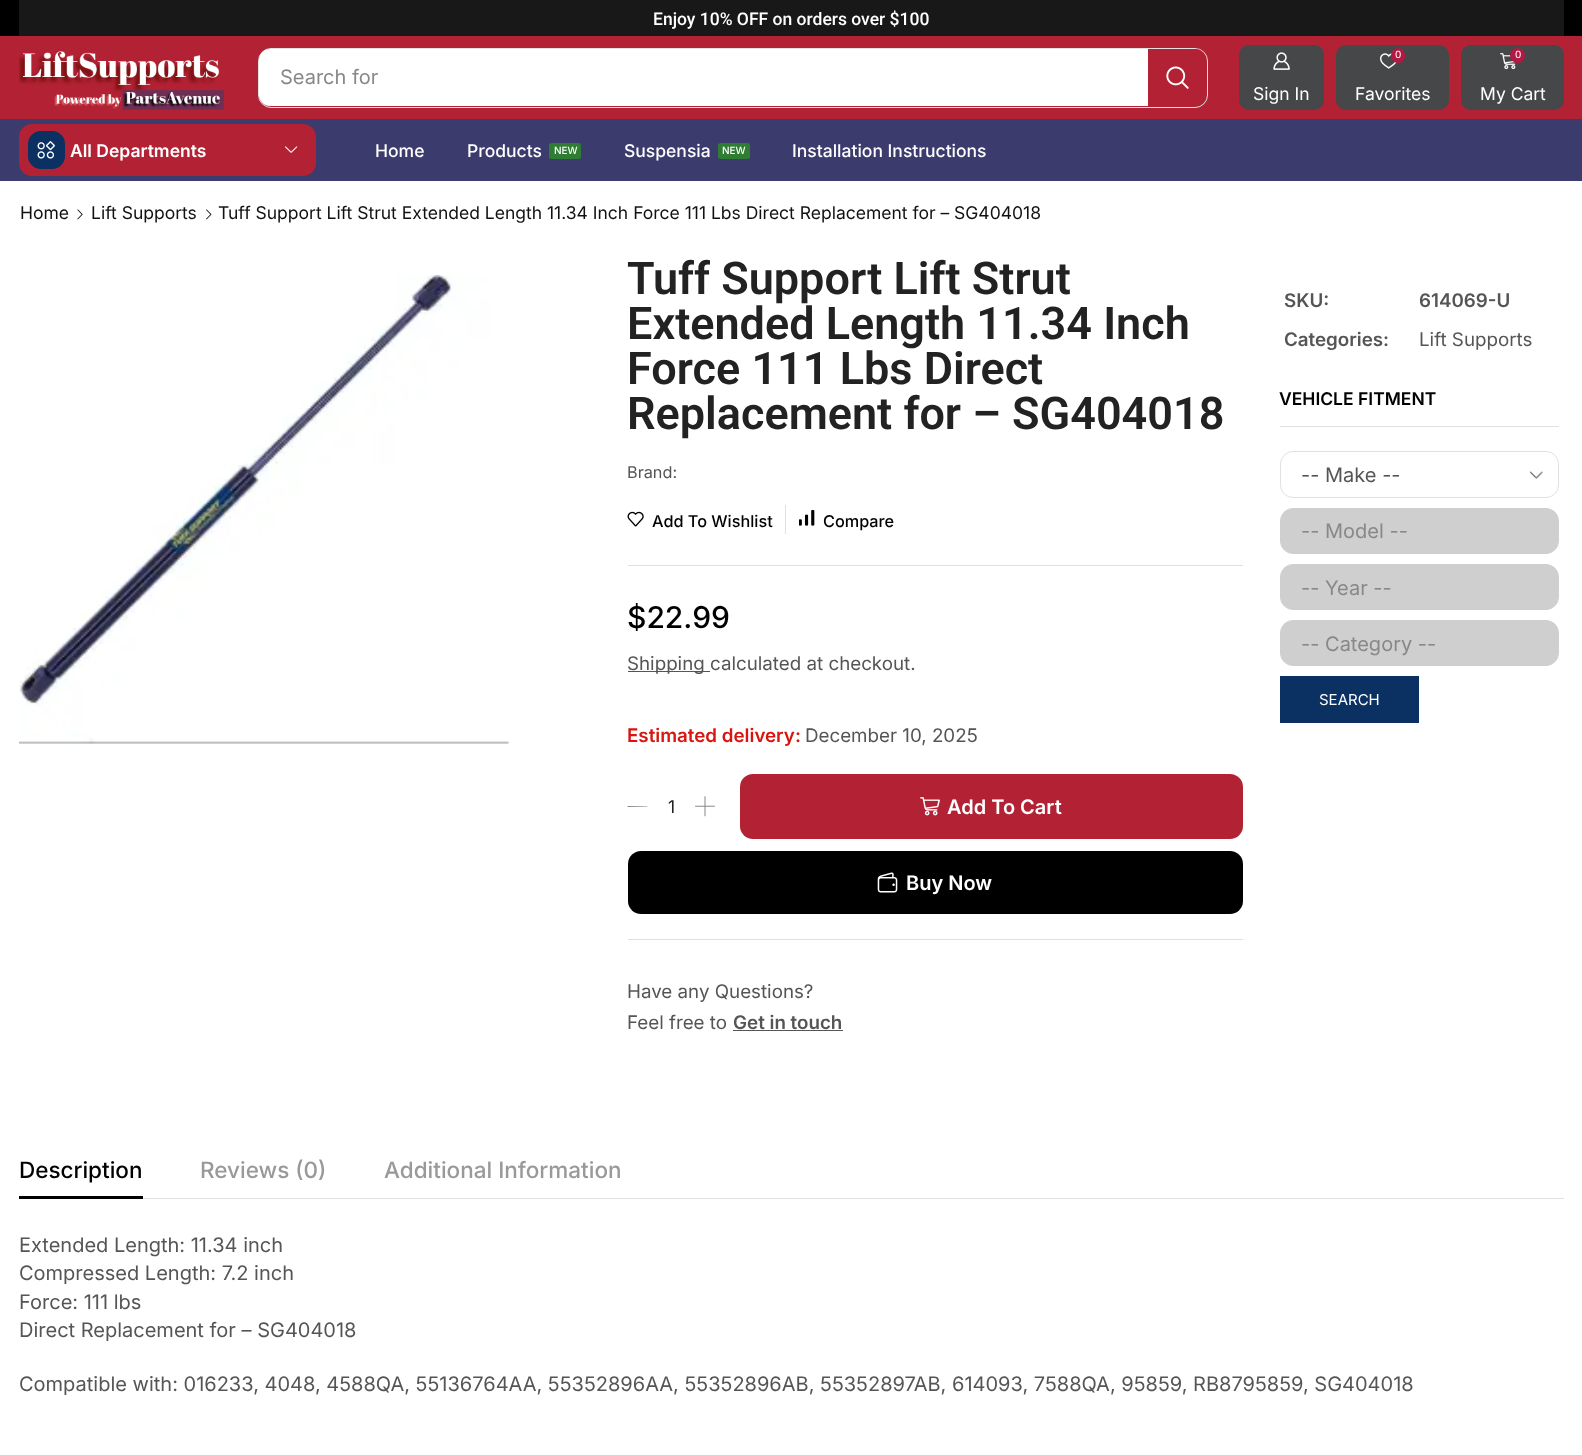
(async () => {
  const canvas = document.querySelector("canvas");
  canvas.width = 1582;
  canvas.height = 1455;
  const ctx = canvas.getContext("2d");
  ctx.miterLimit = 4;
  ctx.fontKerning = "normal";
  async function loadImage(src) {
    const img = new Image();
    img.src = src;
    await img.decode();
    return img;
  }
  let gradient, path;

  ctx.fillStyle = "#ffffff";
  ctx.fillRect(0, 0, 1582, 1455);
  ctx.fillStyle = "#000000";
  ctx.fillRect(0, 0, 1582, 36);
  ctx.fillStyle = "#181818";
  ctx.fillRect(19, 0, 1545, 36);
  gradient = ctx.createLinearGradient(13, 201, 1570, -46);
  gradient.addColorStop(0, "#343436");
  gradient.addColorStop(0, "#b22234");
  ctx.fillStyle = gradient;
  ctx.fillRect(0, 36, 1582, 83);
  ctx.drawImage(await loadImage("img/1.png"), 19, 51, 205, 59);
  ctx.beginPath();
  ctx.roundRect(258.5, 48.5, 949, 59, 12.5);
  ctx.strokeStyle = "#e1e1e1";
  ctx.stroke();
  ctx.fillStyle = "#ffffff";
  ctx.beginPath();
  ctx.roundRect(259, 49, 889, 57, [11, 0, 0, 11]);
  ctx.fill();
  ctx.fillStyle = "#b22234";
  ctx.beginPath();
  ctx.roundRect(1148, 49, 58, 57, [0, 11, 11, 0]);
  ctx.fill();
  ctx.drawImage(await loadImage("img/2.png"), 1166, 66, 23, 23);
  ctx.fillStyle = "#464748";
  ctx.beginPath();
  ctx.roundRect(1336, 45, 113, 65, 10);
  ctx.fill();
  ctx.drawImage(await loadImage("img/3.png"), 1380, 53, 17, 16);
  ctx.fillStyle = "#b31942";
  ctx.beginPath();
  ctx.roundRect(1391, 48, 14, 15, 7);
  ctx.fill();
  ctx.fillStyle = "#464748";
  ctx.beginPath();
  ctx.roundRect(1461, 45, 103, 65, 10);
  ctx.fill();
  ctx.drawImage(await loadImage("img/4.png"), 1500, 53, 16, 17);
  ctx.fillStyle = "#b31942";
  ctx.beginPath();
  ctx.arc(1517.5, 55.5, 7.5, 0, Math.PI * 2);
  ctx.fill();
  ctx.fillStyle = "#464748";
  ctx.beginPath();
  ctx.roundRect(1239, 45, 85, 65, 10);
  ctx.fill();
  ctx.drawImage(await loadImage("img/5.png"), 1273, 52, 17, 18);
  ctx.fillStyle = "#3c3b6e";
  ctx.fillRect(0, 119, 1582, 62);
  ctx.fillStyle = "#b22234";
  ctx.beginPath();
  ctx.roundRect(19, 124, 297, 52, 13);
  ctx.fill();
  ctx.beginPath();
  ctx.roundRect(33, 136, 27, 28, 8);
  ctx.strokeStyle = "#0a3161";
  ctx.lineWidth = 10;
  ctx.stroke();
  ctx.fillStyle = "#0a3161";
  ctx.beginPath();
  ctx.roundRect(38, 141, 17, 18, 2.5);
  ctx.fill();
  ctx.drawImage(await loadImage("img/6.png"), 37, 141, 18, 18);
  ctx.drawImage(await loadImage("img/7.png"), 285, 146, 13, 7);
  ctx.fillStyle = "#2e7d32";
  ctx.beginPath();
  ctx.roundRect(549, 143, 32, 16, 2.5);
  ctx.fill();
  ctx.beginPath();
  ctx.roundRect(718, 143, 32, 16, 2.5);
  ctx.fill();
  ctx.drawImage(await loadImage("img/8.png"), 77, 209, 6, 11);
  ctx.drawImage(await loadImage("img/9.png"), 206, 209, 6, 11);
  ctx.drawImage(await loadImage("img/10.png"), 18, 275, 491, 469);
  ctx.fillStyle = "#e1e1e1";
  ctx.fillRect(785, 505, 1, 29);
  ctx.drawImage(await loadImage("img/11.png"), 627, 511, 17, 16);
  ctx.drawImage(await loadImage("img/12.png"), 799, 510, 16, 16);
  ctx.fillStyle = "#e0e0e0";
  ctx.fillRect(628, 565, 615, 1);
  ctx.fillStyle = "#555555";
  ctx.fillRect(628, 671, 82, 1);
  ctx.fillStyle = "#888888";
  path = new Path2D("M647 806H627.5C627.5 806 627.5 806.5 628 807L647 806.5H647.5Z");
  ctx.fill(path);
  ctx.drawImage(await loadImage("img/13.png"), 695, 796, 20, 21);
  ctx.fillStyle = "#b22234";
  ctx.beginPath();
  ctx.roundRect(740, 774, 503, 65, 13);
  ctx.fill();
  ctx.drawImage(await loadImage("img/14.png"), 920, 797, 20, 19);
  ctx.fillStyle = "#000000";
  ctx.beginPath();
  ctx.roundRect(628, 851, 615, 63, 13);
  ctx.fill();
  ctx.drawImage(await loadImage("img/15.png"), 877, 872, 21, 21);
  for (const [x, y, w, h, color] of [
    [628, 939, 615, 1, "#e0e0e0"],
    [733, 1030, 110, 1, "#555555"],
    [1280, 426, 279, 1, "#e1e1e1"],
  ]) {
    ctx.fillStyle = color;
    ctx.fillRect(x, y, w, h);
  }
  ctx.drawImage(await loadImage("img/16.png"), 1530, 471, 13, 8);
  ctx.beginPath();
  ctx.roundRect(1280.5, 451.5, 278, 46, 12.5);
  ctx.strokeStyle = "#e1e1e1";
  ctx.lineWidth = 1;
  ctx.stroke();
  ctx.fillStyle = "#cfcfcf";
  ctx.beginPath();
  ctx.roundRect(1280.5, 508.5, 278, 45, 12.5);
  ctx.fill();
  ctx.strokeStyle = "#cfcfcf";
  ctx.stroke();
  ctx.beginPath();
  ctx.roundRect(1280.5, 564.5, 278, 45, 12.5);
  ctx.fill();
  ctx.stroke();
  ctx.beginPath();
  ctx.roundRect(1280.5, 620.5, 278, 45, 12.5);
  ctx.fill();
  ctx.stroke();
  for (const [x, y, w, h, color] of [
    [1280, 676, 139, 47, "#0a3161"],
    [19, 1196, 124, 3, "#000000"],
    [143, 1198, 1421, 1, "#e1e1e1"],
  ]) {
    ctx.fillStyle = color;
    ctx.fillRect(x, y, w, h);
  }
  ctx.font = "500 17.5px Roboto";
  ctx.fillStyle = "#ffffff";
  ctx.fillText("Enjoy 10% OFF on orders over $100", 653, 25);
  ctx.font = "20px Inter";
  ctx.fillStyle = "#888888";
  ctx.fillText("Search for", 280, 84);
  ctx.font = "10px Inter";
  ctx.fillStyle = "#ffffff";
  ctx.fillText("0", 1395, 58);
  ctx.font = "17.5px Inter";
  ctx.fillText("Favorites", 1355, 100);
  ctx.font = "10px Inter";
  ctx.fillText("0", 1515, 58);
  ctx.font = "17.5px Inter";
  ctx.fillText("My Cart", 1480, 100);
  ctx.fillText("Sign In", 1253, 100);
  ctx.font = "600 17.5px Inter";
  ctx.fillText("All Departments", 70, 157);
  ctx.font = "500 17.5px Inter";
  ctx.fillText("Home", 375, 157);
  ctx.fillText("Products", 467, 157);
  ctx.font = "500 10px Inter";
  ctx.fillText("NEW", 554, 154);
  ctx.font = "500 17.5px Inter";
  ctx.fillText("Suspensia", 624, 157);
  ctx.font = "500 10px Inter";
  ctx.fillText("NEW", 722, 154);
  ctx.font = "500 17.5px Inter";
  ctx.fillText("Installation Instructions", 792, 157);
  ctx.font = "17.5px Inter";
  ctx.fillStyle = "#111111";
  for (const [text, x, y] of [
    ["Home", 20, 219],
    ["Lift Supports", 91, 219],
    ["Tuff Support Lift Strut Extended Length 11.34 Inch Force 111 Lbs Direct Replacement for – SG404018", 218, 219],
  ]) {
    ctx.fillText(text, x, y);
  }
  ctx.font = "600 45px Roboto";
  ctx.fillStyle = "#222222";
  for (const [text, x, y] of [
    ["Tuff Support Lift Strut", 627, 294],
    ["Extended Length 11.34 Inch", 627, 339],
    ["Force 111 Lbs Direct", 627, 384],
    ["Replacement for – SG404018", 627, 429],
  ]) {
    ctx.fillText(text, x, y);
  }
  ctx.font = "16.25px Inter";
  ctx.fillStyle = "#555555";
  ctx.fillText("Brand:", 627, 478);
  ctx.font = "500 16.25px Inter";
  ctx.fillStyle = "#000000";
  ctx.fillText("Add To Wishlist", 652, 527);
  ctx.fillText("Compare", 823, 527);
  ctx.font = "500 30px Inter";
  ctx.fillText("$22.99", 627, 628);
  ctx.font = "18.75px Inter";
  ctx.fillStyle = "#555555";
  ctx.fillText("Shipping calculated at checkout.", 627, 670);
  ctx.font = "600 18.75px Inter";
  ctx.fillStyle = "#d8160f";
  ctx.fillText("Estimated delivery:", 627, 742);
  ctx.font = "18.75px Inter";
  ctx.fillStyle = "#555555";
  ctx.fillText("December 10, 2025", 805, 742);
  ctx.font = "17.5px Inter";
  ctx.fillStyle = "#222222";
  ctx.fillText("1", 668, 813);
  ctx.font = "600 20px Inter";
  ctx.fillStyle = "#ffffff";
  ctx.fillText("Add To Cart", 947, 814);
  ctx.fillText("Buy Now", 906, 890);
  ctx.font = "18.75px Inter";
  ctx.fillStyle = "#555555";
  ctx.fillText("Have any Questions?", 627, 998);
  ctx.fillText("Feel free to", 627, 1029);
  ctx.font = "600 18.75px Inter";
  for (const [text, x, y] of [
    ["Get in touch", 733, 1029],
    ["SKU:", 1284, 307],
    ["614069-U", 1419, 307],
    ["Categories:", 1284, 346],
  ]) {
    ctx.fillText(text, x, y);
  }
  ctx.font = "18.75px Inter";
  ctx.fillText("Lift Supports", 1419, 346);
  ctx.font = "600 17.5px Inter";
  ctx.fillStyle = "#000000";
  ctx.fillText("VEHICLE FITMENT", 1279, 405);
  ctx.font = "20px Inter";
  ctx.fillStyle = "#555555";
  ctx.fillText("-- Make --", 1301, 482);
  ctx.fillStyle = "#888888";
  for (const [text, x, y] of [
    ["-- Model --", 1301, 538],
    ["-- Year --", 1301, 595],
    ["-- Category --", 1301, 651],
  ]) {
    ctx.fillText(text, x, y);
  }
  ctx.font = "15px Inter";
  ctx.fillStyle = "#ffffff";
  ctx.fillText("SEARCH", 1319, 705);
  ctx.font = "500 22.5px Inter";
  ctx.fillStyle = "#000000";
  ctx.fillText("Description", 19, 1178);
  ctx.fillStyle = "#999999";
  ctx.fillText("Reviews (0)", 200, 1178);
  ctx.fillText("Additional Information", 384, 1178);
  ctx.font = "20px Inter";
  ctx.fillStyle = "#555555";
  for (const [text, x, y] of [
    ["Extended Length: 11.34 inch", 19, 1252],
    ["Compressed Length: 7.2 inch", 19, 1280],
    ["Force: 111 lbs", 19, 1309],
    ["Direct Replacement for – SG404018", 19, 1337],
    ["Compatible with: 016233, 4048, 4588QA, 55136764AA, 55352896AA, 55352896AB, 55352897AB, 614093, 7588QA, 95859, RB8795859, SG404018", 19, 1391],
  ]) {
    ctx.fillText(text, x, y);
  }
})();
